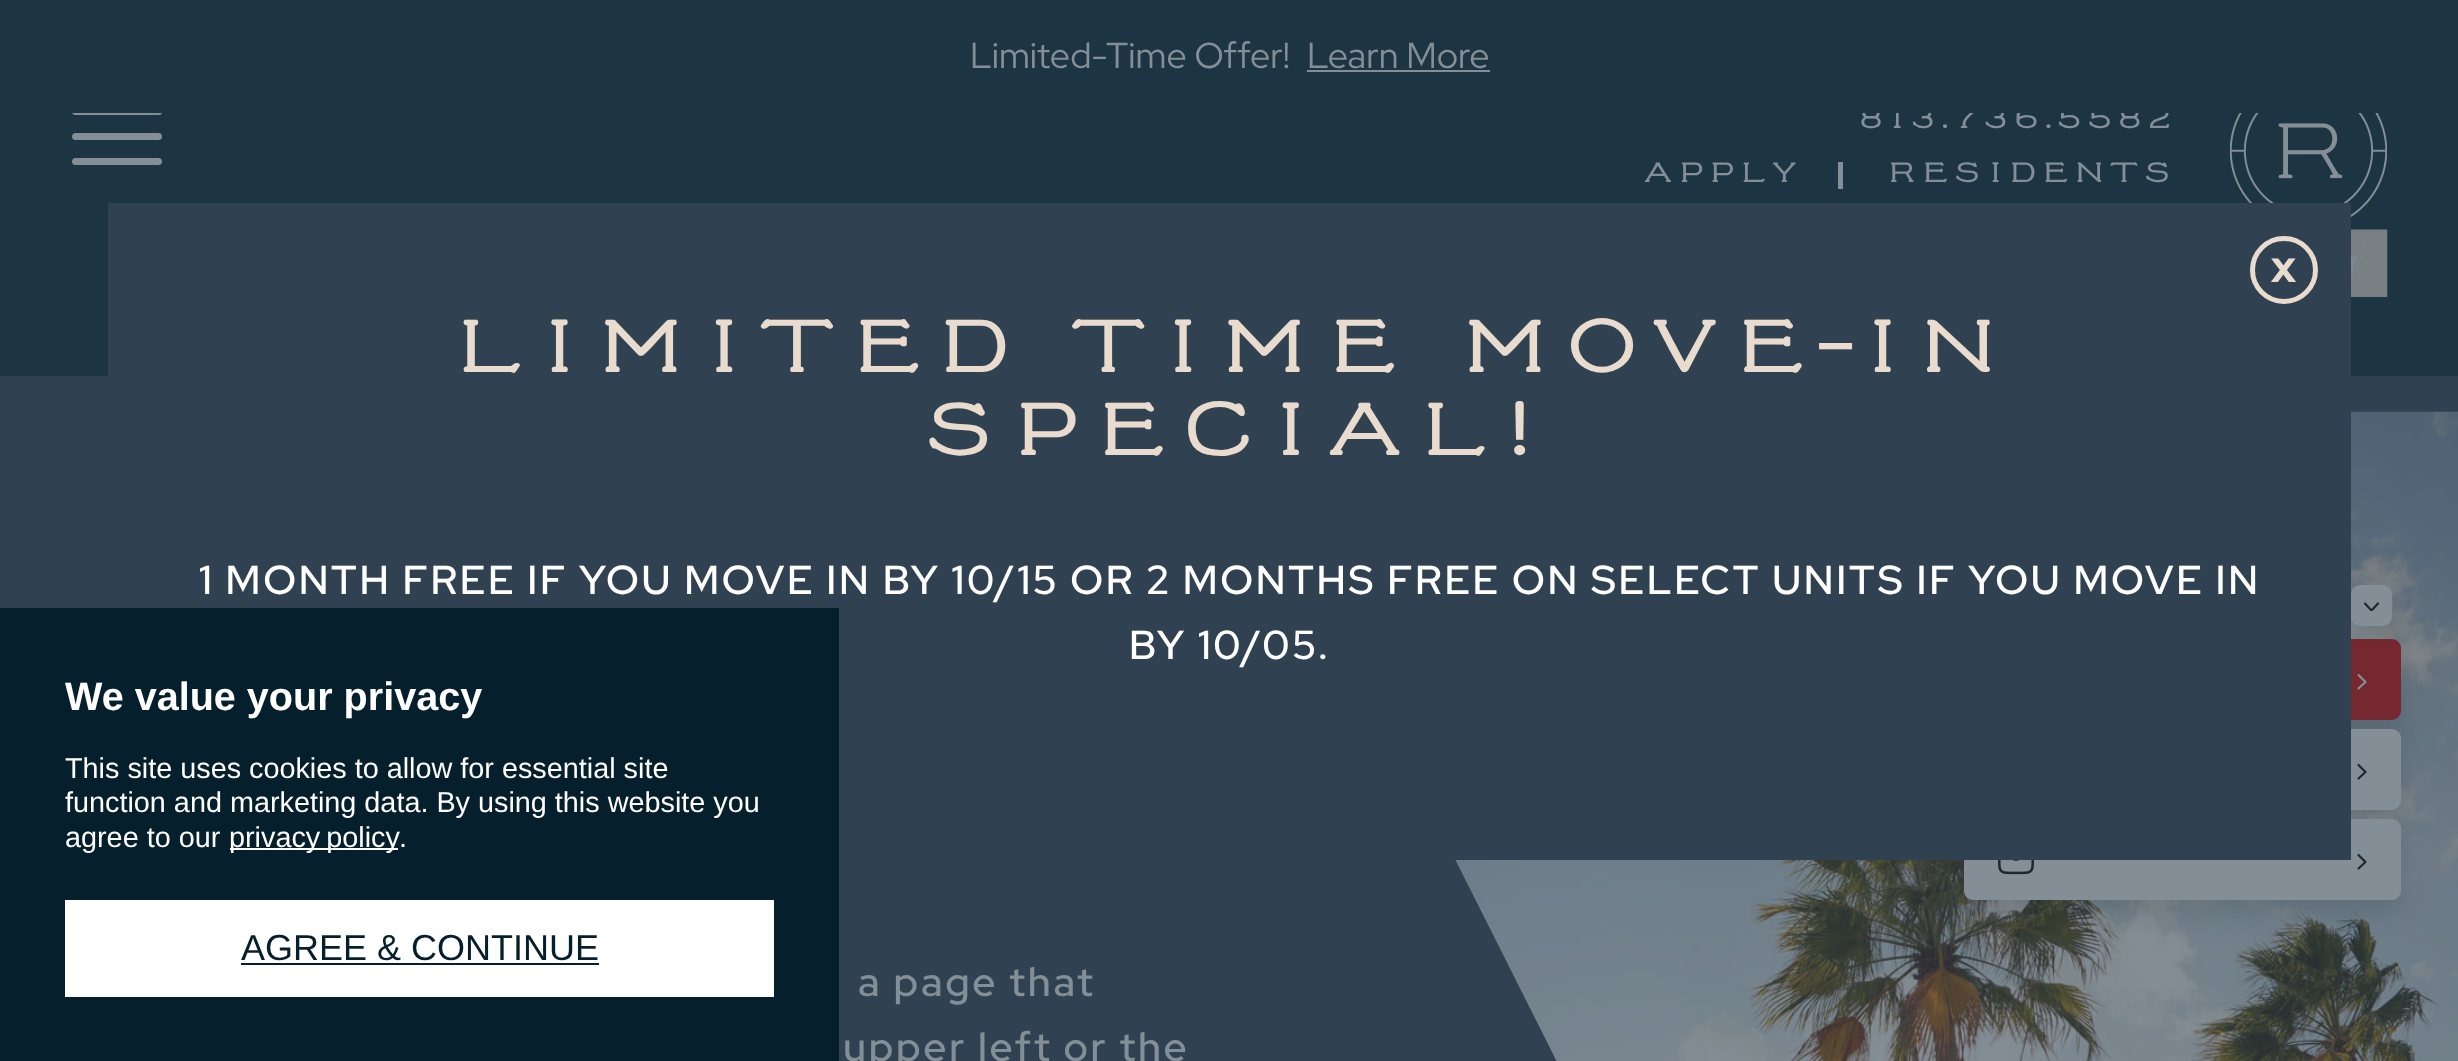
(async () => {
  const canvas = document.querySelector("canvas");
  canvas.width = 2458;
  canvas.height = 1061;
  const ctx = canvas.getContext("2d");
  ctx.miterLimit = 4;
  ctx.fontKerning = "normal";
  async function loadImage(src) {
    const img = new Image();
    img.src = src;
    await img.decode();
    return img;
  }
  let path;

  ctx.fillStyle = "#304251";
  ctx.fillRect(0, 0, 2458, 1061);
  ctx.fillStyle = "#1d3443";
  ctx.fillRect(0, 113, 2458, 263);
  ctx.fillStyle = "#838e97";
  ctx.beginPath();
  ctx.roundRect(72, 108, 90, 7, 3.5);
  ctx.fill();
  ctx.beginPath();
  ctx.roundRect(72, 133, 90, 7, 3.5);
  ctx.fill();
  ctx.beginPath();
  ctx.roundRect(72, 158, 90, 7, 3.5);
  ctx.fill();
  ctx.fillRect(1838, 162, 5, 27);
  ctx.drawImage(await loadImage("img/1.png"), 2230, 113, 157, 104);
  ctx.drawImage(await loadImage("img/2.png"), 2351, 229, 37, 68);
  ctx.drawImage(await loadImage("img/3.png"), 1455, 411, 1003, 650);
  ctx.fillStyle = "rgba(29, 40, 49, 0.15)";
  ctx.filter = "blur(11px)";
  ctx.beginPath();
  ctx.roundRect(1964, 653, 437, 81, 9);
  ctx.fill();
  ctx.filter = "none";
  ctx.fillStyle = "#762831";
  ctx.beginPath();
  ctx.roundRect(1964, 639, 437, 81, 9);
  ctx.fill();
  ctx.fillStyle = "rgba(68, 79, 88, 0.2)";
  ctx.filter = "blur(9px)";
  ctx.beginPath();
  ctx.roundRect(2351, 590, 41, 40, 9);
  ctx.fill();
  ctx.filter = "none";
  ctx.fillStyle = "rgba(29, 40, 49, 0.15)";
  ctx.filter = "blur(11px)";
  ctx.beginPath();
  ctx.roundRect(1964, 743, 437, 81, 9);
  ctx.fill();
  ctx.filter = "none";
  ctx.fillStyle = "#838e97";
  ctx.beginPath();
  ctx.roundRect(1964, 729, 437, 81, 9);
  ctx.fill();
  ctx.fillStyle = "rgba(29, 40, 49, 0.15)";
  ctx.filter = "blur(11px)";
  ctx.beginPath();
  ctx.roundRect(1964, 833, 437, 81, 9);
  ctx.fill();
  ctx.filter = "none";
  ctx.fillStyle = "#838e97";
  ctx.beginPath();
  ctx.roundRect(1964, 819, 437, 81, 9);
  ctx.fill();
  ctx.fillStyle = "#304251";
  ctx.fillRect(108, 203, 2243, 657);
  ctx.beginPath();
  ctx.arc(2284, 270, 31.5, 0, Math.PI * 2);
  ctx.strokeStyle = "#e9dcce";
  ctx.lineWidth = 5;
  ctx.stroke();
  for (const [x, y, w, h, color] of [
    [0, 608, 839, 453, "#051f2d"],
    [230, 848, 168, 2, "#ffffff"],
    [65, 900, 709, 97, "#ffffff"],
    [241, 963, 358, 2, "#051f2d"],
  ]) {
    ctx.fillStyle = color;
    ctx.fillRect(x, y, w, h);
  }
  ctx.fillStyle = "#838e97";
  ctx.beginPath();
  ctx.roundRect(2351, 585, 41, 41, 9);
  ctx.fill();
  ctx.save();
  path = new Path2D("M2380.5 599.5V611H2362.5V599.5Z");
  ctx.clip(path);
  path = new Path2D("M2365 603.5L2371.5 610.5L2378 603.5");
  ctx.strokeStyle = "#1d2831";
  ctx.lineWidth = 2.2;
  ctx.lineCap = "round";
  ctx.lineJoin = "round";
  ctx.stroke(path);
  ctx.restore();
  path = new Path2D("M2358.5 688.5L2365.5 682L2358.5 675");
  ctx.strokeStyle = "#838e97";
  ctx.lineWidth = 2.2;
  ctx.lineCap = "round";
  ctx.lineJoin = "round";
  ctx.stroke(path);
  path = new Path2D("M2358.5 778.5L2365.5 772L2358.5 765");
  ctx.strokeStyle = "#1d2831";
  ctx.stroke(path);
  ctx.drawImage(await loadImage("img/4.png"), 1998, 860, 36, 15);
  path = new Path2D("M2358.5 868.5L2365.5 862L2358.5 855");
  ctx.stroke(path);
  ctx.font = "bold 27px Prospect";
  ctx.fillText("813.736.5582", 1857, 128);
  ctx.fillStyle = "#1d3443";
  ctx.fillRect(0, 0, 2458, 113);
  ctx.font = "36px Red Hat Display";
  ctx.fillStyle = "#838e97";
  ctx.fillText("Learn More", 1307, 68);
  ctx.fillRect(1307, 70, 183, 2);
  ctx.fillText("Limited-Time Offer!", 970, 68);
  ctx.font = "bold 27px Prospect";
  ctx.fillText("Apply", 1642, 182);
  ctx.fillText("Residents", 1886, 182);
  ctx.font = "bold 45px Red Hat Display";
  ctx.fillStyle = "#e9dcce";
  ctx.fillText("x", 2271, 282);
  ctx.font = "bold 72px Prospect";
  ctx.fillText("Limited Time Move-In", 450, 372);
  ctx.fillText("Special!", 919, 455);
  ctx.letterSpacing = "2.7px";
  ctx.font = "500 40.5px Red Hat Display";
  ctx.fillStyle = "#ffffff";
  ctx.fillText("1 MONTH FREE IF YOU MOVE IN BY 10/15 OR 2 MONTHS FREE ON SELECT UNITS IF YOU MOVE IN", 199, 594);
  ctx.fillText("BY 10/05.", 1129, 659);
  ctx.fillStyle = "#838e97";
  ctx.fillText("a page that", 858, 996);
  ctx.fillText("upper left or the", 843, 1061);
  ctx.letterSpacing = "0px";
  ctx.font = "bold 39.6px Liberation Sans";
  ctx.fillStyle = "#ffffff";
  ctx.fillText("We value your privacy", 65, 710);
  ctx.font = "28.8px Liberation Sans";
  for (const [text, x, y] of [
    ["This site uses cookies to allow for essential site", 65, 778],
    ["function and marketing data. By using this website you", 65, 812],
    ["agree to our", 65, 847],
  ]) {
    ctx.fillText(text, x, y);
  }
  ctx.wordSpacing = "-2px";
  ctx.fillText("privacy policy", 229, 847);
  ctx.wordSpacing = "0px";
  ctx.fillText(".", 399, 847);
  ctx.font = "36px Liberation Sans";
  ctx.fillStyle = "#051f2d";
  ctx.fillText("AGREE & CONTINUE", 241, 960);
})();
